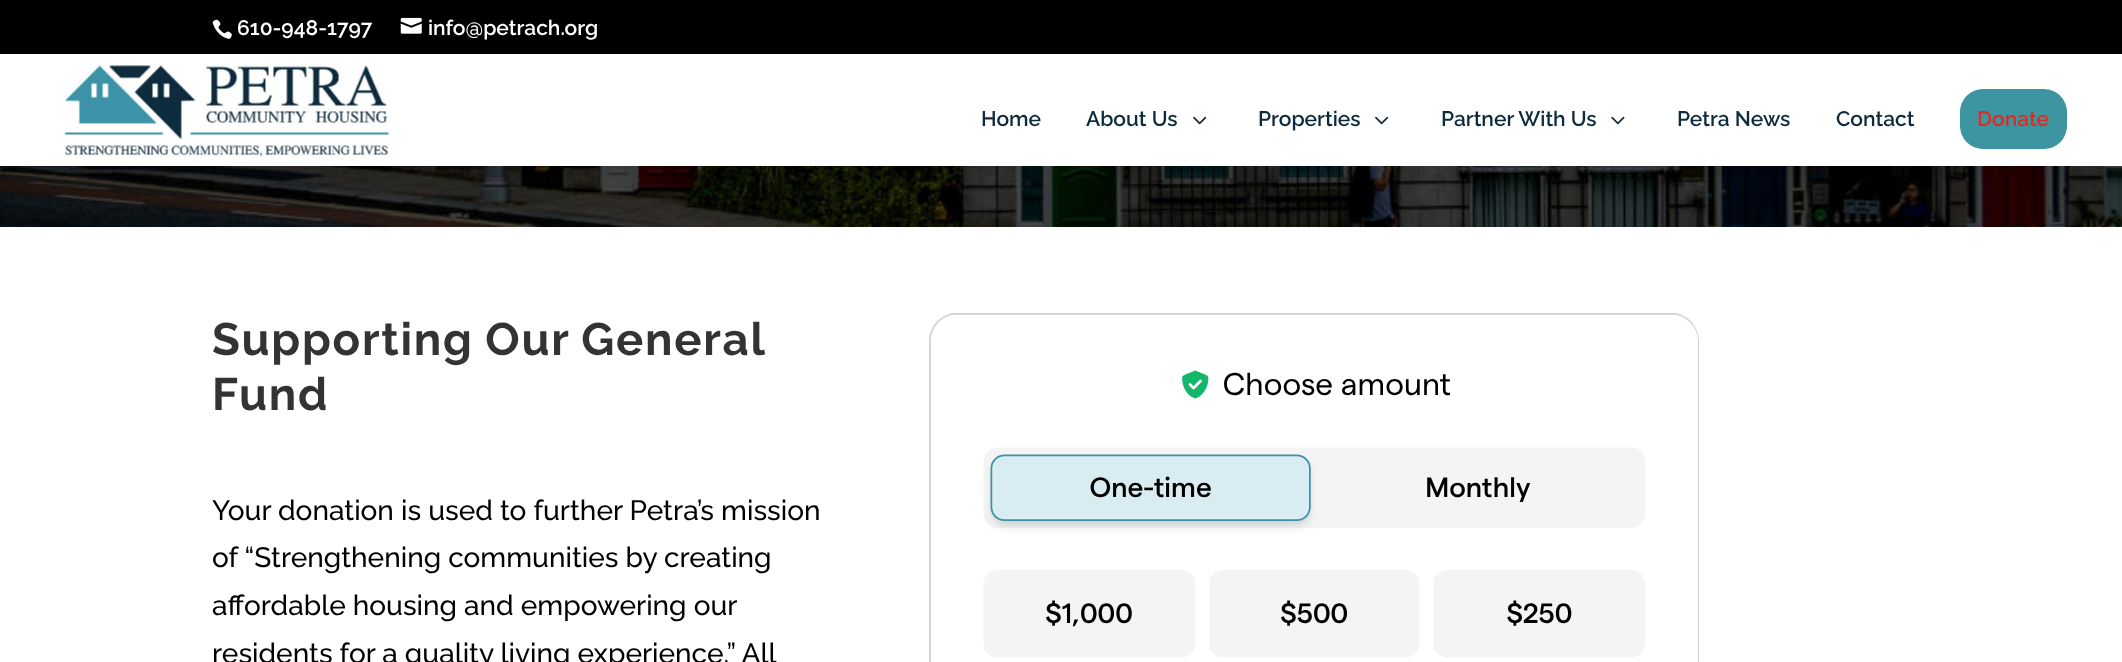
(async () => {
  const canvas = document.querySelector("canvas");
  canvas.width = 2122;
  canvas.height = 662;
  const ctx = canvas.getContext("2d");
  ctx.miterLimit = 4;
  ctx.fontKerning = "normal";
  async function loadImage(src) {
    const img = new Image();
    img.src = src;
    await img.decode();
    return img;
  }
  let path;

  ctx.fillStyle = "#ffffff";
  ctx.fillRect(0, 0, 2122, 662);
  ctx.drawImage(await loadImage("img/6.png"), 0, 166, 2122, 61);
  ctx.fillStyle = "rgba(0, 0, 0, 0.1)";
  ctx.filter = "blur(6px)";
  ctx.beginPath();
  ctx.rect(0, 54, 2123, 112);
  ctx.fill();
  ctx.filter = "none";
  ctx.fillStyle = "#000000";
  ctx.fillRect(0, 0, 2122, 54);
  ctx.drawImage(await loadImage("img/1.png"), 212, 19, 20, 20);
  ctx.drawImage(await loadImage("img/2.png"), 400, 17, 22, 17);
  ctx.fillStyle = "#ffffff";
  ctx.fillRect(0, 54, 2122, 112);
  ctx.drawImage(await loadImage("img/3.png"), 64, 64, 326, 93);
  ctx.drawImage(await loadImage("img/4.png"), 1193, 116, 14, 9);
  ctx.drawImage(await loadImage("img/4.png"), 1375, 116, 14, 9);
  ctx.drawImage(await loadImage("img/5.png"), 1611, 116, 14, 9);
  ctx.fillStyle = "#3d95a2";
  ctx.beginPath();
  ctx.roundRect(1960, 89, 107, 60, 23);
  ctx.fill();
  ctx.fillStyle = "#d1d5db";
  path = new Path2D("M957 315C950 315 944 318 939 323L937 321C942 317 947 314 953 313H1675C1681 314 1687 317 1691 321L1690 323C1685 318 1678 315 1671 315Z");
  ctx.fill(path);
  path = new Path2D("M1691 321C1696 327 1699 334 1699 341V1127L1697 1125H1698V341C1698 334 1695 327 1690 323Z");
  ctx.fill(path);
  path = new Path2D("M929 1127V337C930 331 933 326 937 321L939 323C934 328 931 334 931 341V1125Z");
  ctx.fill(path);
  ctx.drawImage(await loadImage("img/7.png"), 931, 314, 765, 344);
  ctx.font = "600 21px Raleway";
  ctx.fillStyle = "#ffffff";
  ctx.fillText("610-948-1797", 237, 35);
  ctx.fillText("info@petrach.org", 428, 35);
  ctx.fillStyle = "#0e2b3e";
  for (const [text, x, y] of [
    ["Home", 981, 126],
    ["About Us", 1086, 126],
    ["Properties", 1258, 126],
    ["Partner With Us", 1441, 126],
    ["Petra News", 1677, 126],
    ["Contact", 1836, 126],
  ]) {
    ctx.fillText(text, x, y);
  }
  ctx.fillStyle = "#e02b20";
  ctx.fillText("Donate", 1977, 126);
  ctx.letterSpacing = "1.75px";
  ctx.wordSpacing = "-1px";
  ctx.font = "bold 45.5px Raleway";
  ctx.fillStyle = "#333333";
  ctx.fillText("Supporting Our General", 212, 355);
  ctx.wordSpacing = "0px";
  ctx.fillText("Fund", 212, 410);
  ctx.letterSpacing = "0px";
  ctx.font = "500 28px Raleway";
  ctx.fillStyle = "#000000";
  for (const [text, x, y] of [
    ["Your donation is used to further Petra’s mission", 212, 520],
    ["of “Strengthening communities by creating", 212, 567],
    ["affordable housing and empowering our", 212, 615],
    ["residents for a quality living experience.” All", 212, 663],
  ]) {
    ctx.fillText(text, x, y);
  }
})();
